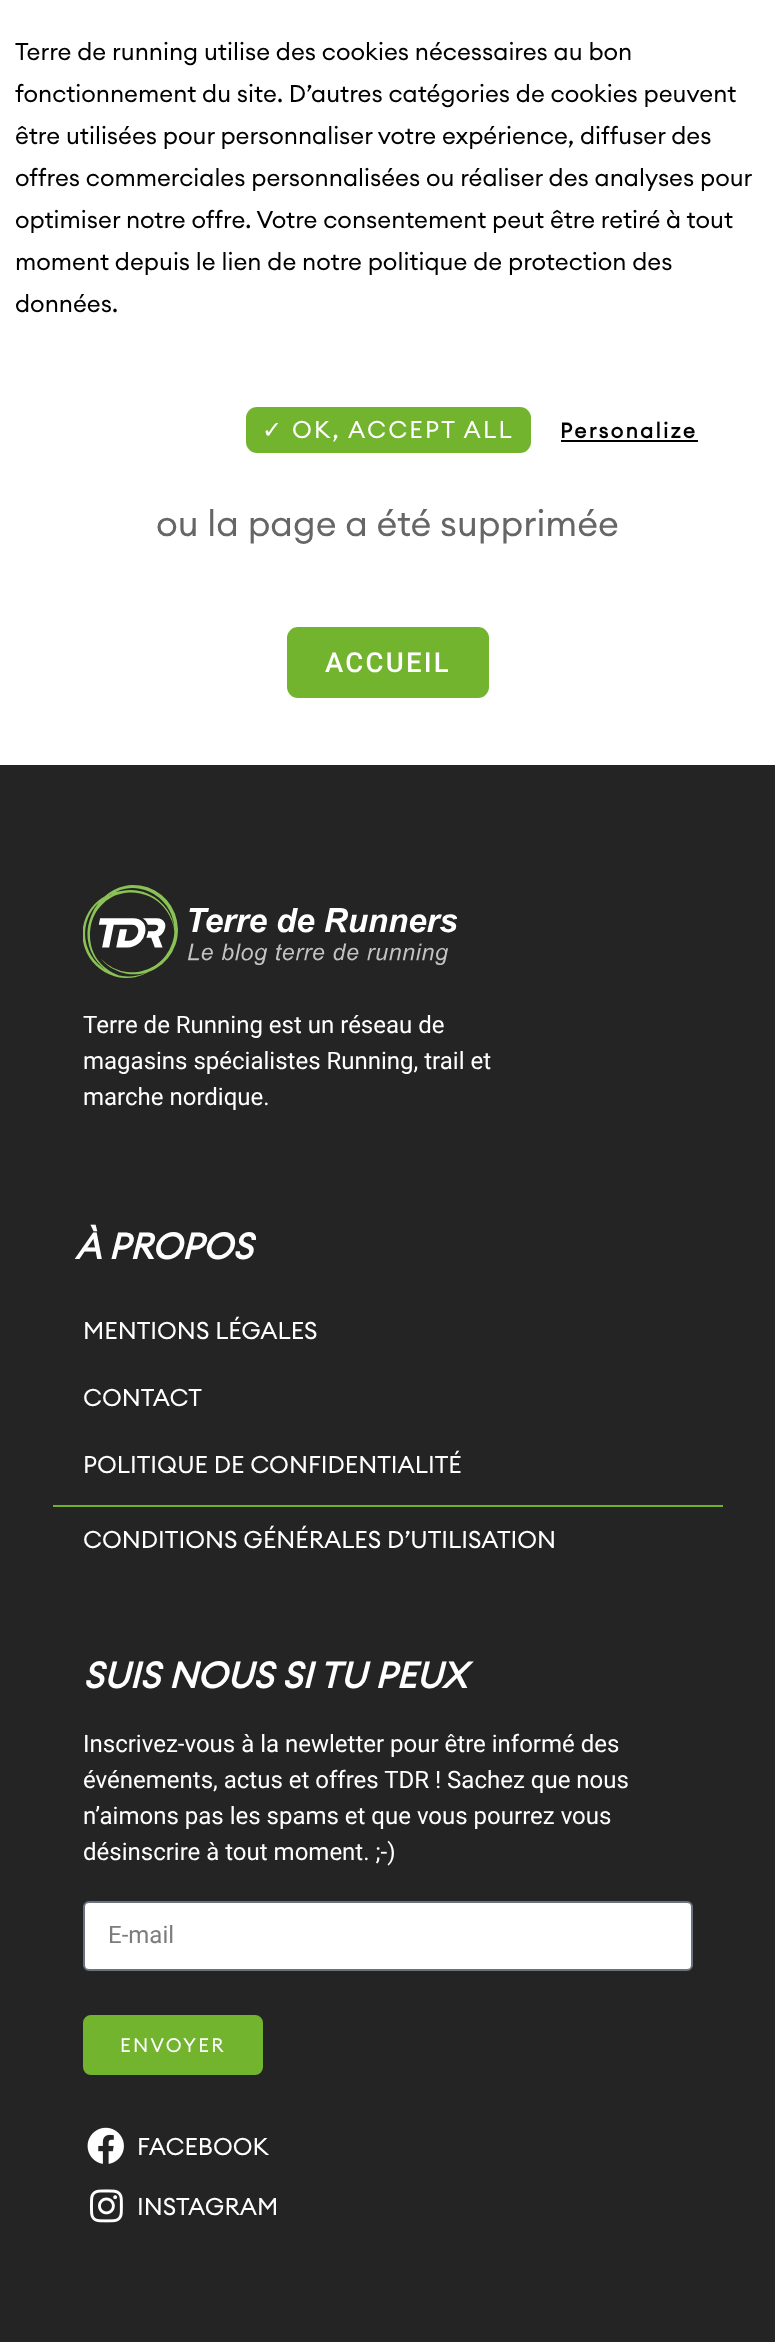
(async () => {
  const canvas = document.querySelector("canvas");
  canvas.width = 775;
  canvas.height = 2342;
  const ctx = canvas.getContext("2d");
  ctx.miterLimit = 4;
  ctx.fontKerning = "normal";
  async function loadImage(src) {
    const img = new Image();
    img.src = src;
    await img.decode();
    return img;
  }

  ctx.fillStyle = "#ffffff";
  ctx.fillRect(0, 0, 775, 2342);
  ctx.fillStyle = "#73b42f";
  ctx.beginPath();
  ctx.roundRect(246, 407, 285, 46, 11);
  ctx.fill();
  ctx.fillStyle = "#000000";
  ctx.fillRect(561, 440, 137, 2);
  ctx.fillStyle = "#73b42f";
  ctx.beginPath();
  ctx.roundRect(288, 628, 200, 69, 10);
  ctx.fill();
  ctx.strokeStyle = "#73b42f";
  ctx.lineWidth = 2;
  ctx.stroke();
  ctx.fillStyle = "#242424";
  ctx.fillRect(0, 765, 775, 1577);
  ctx.drawImage(await loadImage("img/1.png"), 83, 885, 375, 93);
  ctx.fillStyle = "#6fb129";
  ctx.fillRect(53, 1505, 670, 2);
  ctx.fillStyle = "#ffffff";
  ctx.beginPath();
  ctx.roundRect(84, 1902, 608, 68, 5);
  ctx.fill();
  ctx.strokeStyle = "#69727d";
  ctx.stroke();
  ctx.fillStyle = "#73b42f";
  ctx.beginPath();
  ctx.roundRect(84, 2016, 178, 58, 7);
  ctx.fill();
  ctx.strokeStyle = "#73b42f";
  ctx.stroke();
  ctx.drawImage(await loadImage("img/2.png"), 87, 2127, 37, 37);
  ctx.drawImage(await loadImage("img/3.png"), 90, 2189, 33, 34);
  ctx.font = "24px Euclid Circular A";
  ctx.fillStyle = "#000000";
  for (const [text, x, y] of [
    ["Terre de running utilise des cookies nécessaires au bon", 15, 60],
    ["fonctionnement du site. D’autres catégories de cookies peuvent", 15, 102],
    ["être utilisées pour personnaliser votre expérience, diffuser des", 15, 144],
    ["offres commerciales personnalisées ou réaliser des analyses pour", 15, 186],
    ["optimiser notre offre. Votre consentement peut être retiré à tout", 15, 228],
    ["moment depuis le lien de notre politique de protection des", 15, 270],
    ["données.", 15, 312],
  ]) {
    ctx.fillText(text, x, y);
  }
  ctx.letterSpacing = "2.25px";
  ctx.font = "24px DejaVu Sans";
  ctx.fillStyle = "#ffffff";
  ctx.fillText("✓", 262, 438);
  ctx.font = "24px Euclid Circular A";
  ctx.fillText("OK, ACCEPT ALL", 292, 438);
  ctx.font = "bold 21px Euclid Circular A";
  ctx.fillStyle = "#000000";
  ctx.fillText("Personalize", 560, 438);
  ctx.letterSpacing = "0px";
  ctx.font = "36px Euclid Circular A";
  ctx.fillStyle = "#666666";
  ctx.fillText("ou la page a été supprimée", 156, 536);
  ctx.letterSpacing = "2.25px";
  ctx.font = "500 27.5px Roboto";
  ctx.fillStyle = "#ffffff";
  ctx.fillText("ACCUEIL", 325, 672);
  ctx.letterSpacing = "0px";
  ctx.font = "24px Roboto";
  for (const [text, x, y] of [
    ["Terre de Running est un réseau de", 83, 1033],
    ["magasins spécialistes Running, trail et", 83, 1069],
    ["marche nordique.", 83, 1105],
  ]) {
    ctx.fillText(text, x, y);
  }
  ctx.font = "italic bold 36px Euclid Circular A";
  ctx.fillText("À PROPOS", 75, 1259);
  ctx.font = "24px Euclid Circular A";
  for (const [text, x, y] of [
    ["MENTIONS LÉGALES", 83, 1339],
    ["CONTACT", 83, 1406],
    ["POLITIQUE DE CONFIDENTIALITÉ", 83, 1473],
    ["CONDITIONS GÉNÉRALES D’UTILISATION", 83, 1548],
  ]) {
    ctx.fillText(text, x, y);
  }
  ctx.font = "italic bold 36px Euclid Circular A";
  ctx.fillText("SUIS NOUS SI TU PEUX", 83, 1688);
  ctx.font = "24px Roboto";
  for (const [text, x, y] of [
    ["Inscrivez-vous à la newletter pour être informé des", 83, 1752],
    ["événements, actus et offres TDR ! Sachez que nous", 83, 1788],
    ["n’aimons pas les spams et que vous pourrez vous", 83, 1824],
    ["désinscrire à tout moment. ;-)", 83, 1860],
  ]) {
    ctx.fillText(text, x, y);
  }
  ctx.fillStyle = "#7c7c7c";
  ctx.fillText("E-mail", 108, 1943);
  ctx.letterSpacing = "2.25px";
  ctx.font = "19.25px Euclid Circular A";
  ctx.fillStyle = "#ffffff";
  ctx.fillText("ENVOYER", 120, 2052);
  ctx.letterSpacing = "0px";
  ctx.font = "24px Euclid Circular A";
  ctx.fillText("FACEBOOK", 137, 2155);
  ctx.fillText("INSTAGRAM", 137, 2215);
})();
